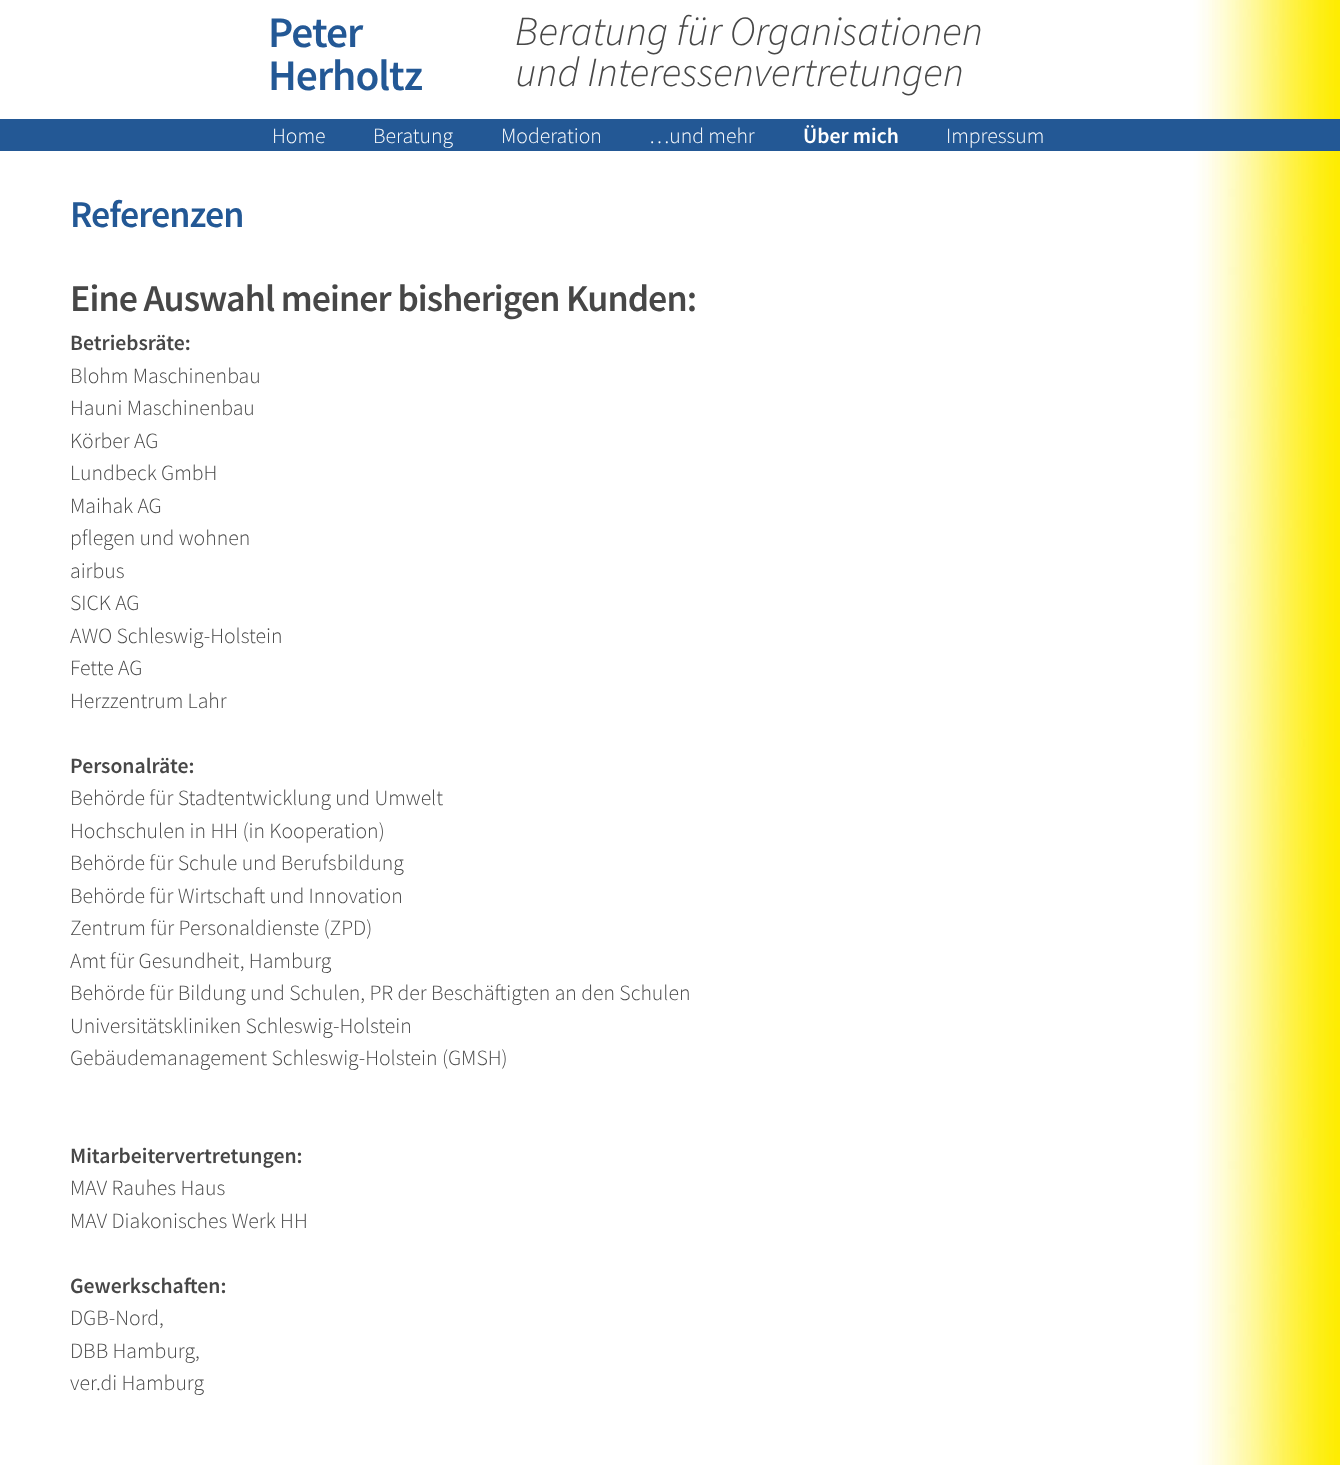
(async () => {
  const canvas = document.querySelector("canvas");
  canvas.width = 1340;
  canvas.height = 1465;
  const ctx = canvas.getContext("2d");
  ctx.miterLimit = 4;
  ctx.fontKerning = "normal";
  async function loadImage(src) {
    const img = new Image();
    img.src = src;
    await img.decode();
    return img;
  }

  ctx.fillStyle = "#ffffff";
  ctx.fillRect(0, 0, 1340, 1465);
  ctx.drawImage(await loadImage("img/1.png"), 0, 0, 1340, 1465);
  ctx.fillStyle = "#235895";
  ctx.fillRect(0, 119, 1340, 32);
  ctx.letterSpacing = "-1px";
  ctx.font = "600 43.5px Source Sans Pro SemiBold";
  ctx.fillText("Peter", 268, 47);
  ctx.fillText("Herholtz", 268, 90);
  ctx.letterSpacing = "0px";
  ctx.font = "italic 300 41.25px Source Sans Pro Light";
  ctx.fillStyle = "#474747";
  ctx.fillText("Beratung für Organisationen", 515, 45);
  ctx.fillText("und Interessenvertretungen", 515, 86);
  ctx.font = "300 21.7px Source Sans Pro Light";
  ctx.fillStyle = "#ffffff";
  for (const [text, x, y] of [
    ["Home", 272, 143],
    ["Beratung", 373, 143],
    ["Moderation", 501, 143],
    ["…und mehr", 649, 143],
  ]) {
    ctx.fillText(text, x, y);
  }
  ctx.font = "600 21.7px Source Sans Pro SemiBold";
  ctx.fillText("Über mich", 803, 143);
  ctx.font = "300 21.7px Source Sans Pro Light";
  ctx.fillText("Impressum", 946, 143);
  ctx.letterSpacing = "-0.95px";
  ctx.font = "600 37.9px Source Sans Pro SemiBold";
  ctx.fillStyle = "#235895";
  ctx.fillText("Referenzen", 70, 227);
  ctx.fillStyle = "#474747";
  ctx.fillText("Eine Auswahl meiner bisherigen Kunden:", 70, 311);
  ctx.letterSpacing = "0px";
  ctx.font = "600 21.7px Source Sans Pro SemiBold";
  ctx.fillText("Betriebsräte:", 70, 350);
  ctx.font = "300 21.7px Source Sans Pro Light";
  for (const [text, x, y] of [
    ["Blohm Maschinenbau", 70, 383],
    ["Hauni Maschinenbau", 70, 415],
    ["Körber AG", 70, 448],
    ["Lundbeck GmbH", 70, 480],
    ["Maihak AG", 70, 513],
    ["pflegen und wohnen", 70, 545],
    ["airbus", 70, 578],
    ["SICK AG", 70, 610],
    ["AWO Schleswig-Holstein", 70, 643],
    ["Fette AG", 70, 675],
    ["Herzzentrum Lahr", 70, 708],
  ]) {
    ctx.fillText(text, x, y);
  }
  ctx.font = "600 21.7px Source Sans Pro SemiBold";
  ctx.fillText("Personalräte:", 70, 773);
  ctx.font = "300 21.7px Source Sans Pro Light";
  for (const [text, x, y] of [
    ["Behörde für Stadtentwicklung und Umwelt", 70, 805],
    ["Hochschulen in HH (in Kooperation)", 70, 838],
    ["Behörde für Schule und Berufsbildung", 70, 870],
    ["Behörde für Wirtschaft und Innovation", 70, 903],
    ["Zentrum für Personaldienste (ZPD)", 70, 935],
    ["Amt für Gesundheit, Hamburg", 70, 968],
    ["Behörde für Bildung und Schulen, PR der Beschäftigten an den Schulen", 70, 1000],
    ["Universitätskliniken Schleswig-Holstein", 70, 1033],
    ["Gebäudemanagement Schleswig-Holstein (GMSH)", 70, 1065],
  ]) {
    ctx.fillText(text, x, y);
  }
  ctx.font = "600 21.7px Source Sans Pro SemiBold";
  ctx.fillText("Mitarbeitervertretungen:", 70, 1163);
  ctx.font = "300 21.7px Source Sans Pro Light";
  ctx.fillText("MAV Rauhes Haus", 70, 1195);
  ctx.fillText("MAV Diakonisches Werk HH", 70, 1228);
  ctx.font = "600 21.7px Source Sans Pro SemiBold";
  ctx.fillText("Gewerkschaften:", 70, 1293);
  ctx.font = "300 21.7px Source Sans Pro Light";
  for (const [text, x, y] of [
    ["DGB-Nord,", 70, 1325],
    ["DBB Hamburg,", 70, 1358],
    ["ver.di Hamburg", 70, 1390],
  ]) {
    ctx.fillText(text, x, y);
  }
})();
